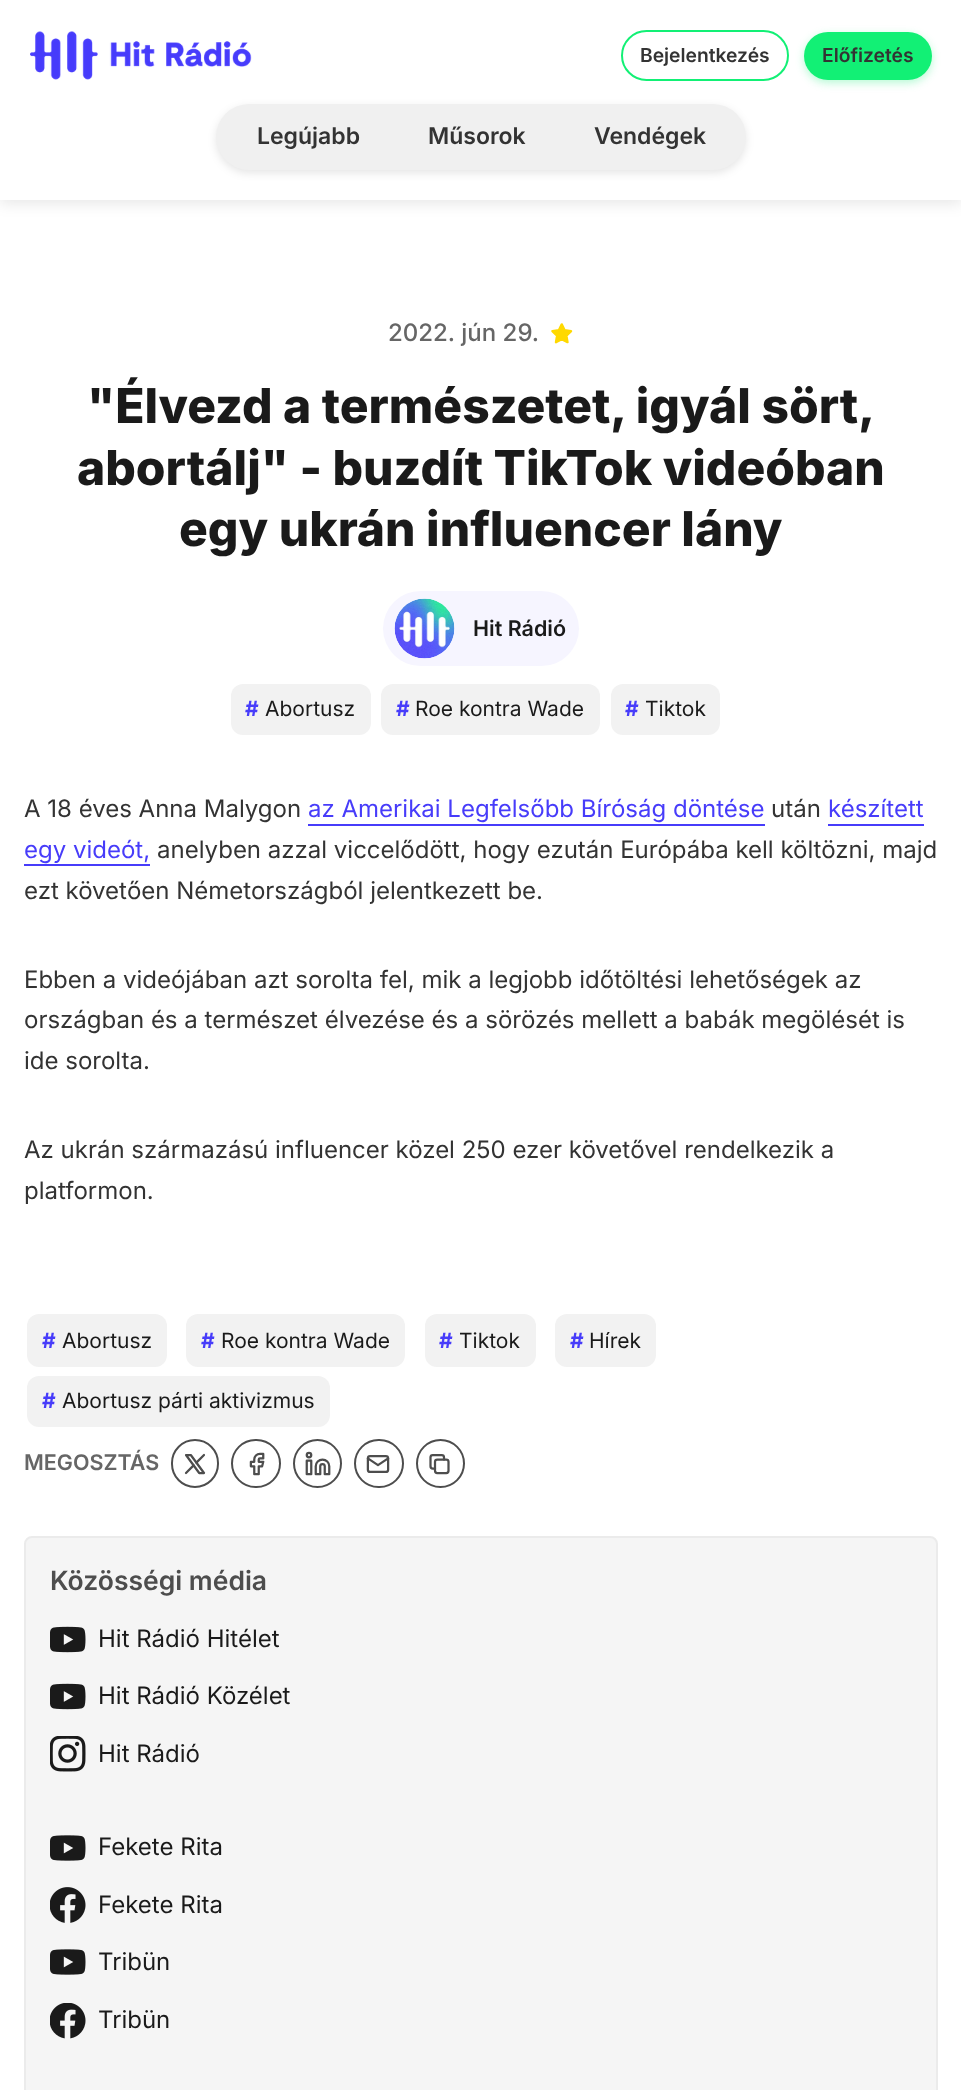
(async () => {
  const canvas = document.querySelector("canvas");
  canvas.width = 961;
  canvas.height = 2090;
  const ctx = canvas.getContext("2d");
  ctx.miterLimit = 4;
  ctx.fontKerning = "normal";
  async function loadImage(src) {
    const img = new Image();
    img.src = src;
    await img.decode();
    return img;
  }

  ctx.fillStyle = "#ffffff";
  ctx.fillRect(0, 0, 961, 2090);
  ctx.fillStyle = "rgba(0, 0, 0, 0.1)";
  ctx.filter = "blur(7.5px)";
  ctx.beginPath();
  ctx.rect(0, 3, 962, 200);
  ctx.fill();
  ctx.filter = "none";
  ctx.fillStyle = "#ffffff";
  ctx.fillRect(0, 0, 961, 200);
  ctx.drawImage(await loadImage("img/1.png"), 30, 31, 222, 49);
  ctx.beginPath();
  ctx.roundRect(622, 31, 166, 49, 24.5);
  ctx.strokeStyle = "#12f075";
  ctx.lineWidth = 2;
  ctx.stroke();
  ctx.fillStyle = "rgba(18, 240, 117, 0.3)";
  ctx.filter = "blur(4px)";
  ctx.beginPath();
  ctx.roundRect(804, 35, 128, 48, 24);
  ctx.fill();
  ctx.filter = "none";
  ctx.fillStyle = "#12f075";
  ctx.beginPath();
  ctx.roundRect(804, 32, 128, 48, 24);
  ctx.fill();
  ctx.fillStyle = "rgba(0, 0, 0, 0.1)";
  ctx.filter = "blur(4px)";
  ctx.beginPath();
  ctx.roundRect(216, 107, 530, 66, 33);
  ctx.fill();
  ctx.filter = "none";
  ctx.fillStyle = "#f0f0f0";
  ctx.beginPath();
  ctx.roundRect(216, 104, 530, 66, 33);
  ctx.fill();
  ctx.drawImage(await loadImage("img/2.png"), 551, 323, 22, 21);
  ctx.fillStyle = "#f6f5ff";
  ctx.beginPath();
  ctx.roundRect(383, 591, 196, 75, 37.5);
  ctx.fill();
  ctx.drawImage(await loadImage("img/3.png"), 394, 598, 61, 61);
  ctx.fillStyle = "#f2f2f2";
  ctx.beginPath();
  ctx.roundRect(231, 684, 140, 51, 12);
  ctx.fill();
  ctx.beginPath();
  ctx.roundRect(381, 684, 219, 51, 12);
  ctx.fill();
  ctx.beginPath();
  ctx.roundRect(611, 684, 109, 51, 12);
  ctx.fill();
  for (const [x, y, w, h, color] of [
    [308, 824, 457, 2, "#473cfa"],
    [828, 824, 96, 2, "#473cfa"],
    [24, 864, 126, 2, "#473cfa"],
  ]) {
    ctx.fillStyle = color;
    ctx.fillRect(x, y, w, h);
  }
  ctx.fillStyle = "#f2f2f2";
  ctx.beginPath();
  ctx.roundRect(27, 1314, 140, 53, 12);
  ctx.fill();
  ctx.beginPath();
  ctx.roundRect(186, 1314, 219, 53, 12);
  ctx.fill();
  ctx.beginPath();
  ctx.roundRect(425, 1314, 111, 53, 12);
  ctx.fill();
  ctx.beginPath();
  ctx.roundRect(555, 1314, 101, 53, 12);
  ctx.fill();
  ctx.beginPath();
  ctx.roundRect(27, 1376, 303, 51, 12);
  ctx.fill();
  ctx.beginPath();
  ctx.roundRect(172, 1440, 46, 47, 23);
  ctx.strokeStyle = "#4d4d4d";
  ctx.stroke();
  ctx.drawImage(await loadImage("img/4.png"), 184, 1453, 22, 22);
  ctx.beginPath();
  ctx.roundRect(232, 1440, 48, 47, 23.5);
  ctx.stroke();
  ctx.drawImage(await loadImage("img/5.png"), 249, 1452, 16, 24);
  ctx.beginPath();
  ctx.arc(317.5, 1463.5, 23.5, 0, Math.PI * 2);
  ctx.stroke();
  ctx.drawImage(await loadImage("img/6.png"), 305, 1451, 26, 25);
  ctx.beginPath();
  ctx.roundRect(355, 1440, 48, 47, 23.5);
  ctx.stroke();
  ctx.drawImage(await loadImage("img/7.png"), 366, 1455, 24, 18);
  ctx.beginPath();
  ctx.arc(440.5, 1463.5, 23.5, 0, Math.PI * 2);
  ctx.stroke();
  ctx.drawImage(await loadImage("img/8.png"), 429, 1454, 21, 21);
  ctx.fillStyle = "#f5f5f5";
  ctx.beginPath();
  ctx.roundRect(25, 1537, 912, 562, 7);
  ctx.fill();
  ctx.strokeStyle = "#ebebeb";
  ctx.stroke();
  ctx.drawImage(await loadImage("img/9.png"), 50, 1626, 36, 27);
  ctx.drawImage(await loadImage("img/9.png"), 50, 1683, 36, 27);
  ctx.drawImage(await loadImage("img/10.png"), 50, 1736, 36, 36);
  ctx.drawImage(await loadImage("img/11.png"), 50, 1835, 36, 26);
  ctx.drawImage(await loadImage("img/12.png"), 50, 1887, 36, 36);
  ctx.drawImage(await loadImage("img/11.png"), 50, 1949, 36, 26);
  ctx.drawImage(await loadImage("img/13.png"), 50, 2003, 36, 36);
  ctx.font = "600 19.25px Inter";
  ctx.fillStyle = "#333333";
  ctx.fillText("Bejelentkezés", 640, 62);
  ctx.fillText("Előfizetés", 822, 62);
  ctx.font = "600 23px Inter";
  for (const [text, x, y] of [
    ["Legújabb", 257, 144],
    ["Műsorok", 428, 144],
    ["Vendégek", 594, 144],
  ]) {
    ctx.fillText(text, x, y);
  }
  ctx.font = "500 24px Inter";
  ctx.fillStyle = "#666666";
  ctx.fillText("2022. jún 29.", 388, 341);
  ctx.font = "800 48px Inter";
  ctx.fillStyle = "#1a1a1a";
  for (const [text, x, y] of [
    ["\"Élvezd a természetet, igyál sört,", 87, 423],
    ["abortálj\" - buzdít TikTok videóban", 77, 485],
    ["egy ukrán influencer lány", 179, 546],
  ]) {
    ctx.fillText(text, x, y);
  }
  ctx.font = "600 21.5px Inter";
  ctx.fillText("Hit Rádió", 473, 636);
  ctx.font = "bold 21px Inter";
  ctx.fillStyle = "#473cfa";
  ctx.fillText("#", 245, 716);
  ctx.font = "21px Inter";
  ctx.fillStyle = "#1a1a1a";
  ctx.fillText("Abortusz", 265, 716);
  ctx.font = "bold 21px Inter";
  ctx.fillStyle = "#473cfa";
  ctx.fillText("#", 396, 716);
  ctx.font = "21px Inter";
  ctx.fillStyle = "#1a1a1a";
  ctx.fillText("Roe kontra Wade", 415, 716);
  ctx.font = "bold 21px Inter";
  ctx.fillStyle = "#473cfa";
  ctx.fillText("#", 625, 716);
  ctx.font = "21px Inter";
  ctx.fillStyle = "#1a1a1a";
  ctx.fillText("Tiktok", 645, 716);
  ctx.font = "24px Inter";
  ctx.fillStyle = "#333333";
  ctx.fillText("A 18 éves Anna Malygon", 24, 817);
  ctx.fillStyle = "#473cfa";
  ctx.fillText("az Amerikai Legfelsőbb Bíróság döntése", 308, 817);
  ctx.fillStyle = "#333333";
  ctx.fillText("után", 771, 817);
  ctx.fillStyle = "#473cfa";
  ctx.fillText("készített", 828, 817);
  ctx.fillText("egy videót,", 24, 858);
  ctx.fillStyle = "#333333";
  for (const [text, x, y] of [
    ["anelyben azzal viccelődött, hogy ezután Európába kell költözni, majd", 157, 858],
    ["ezt követően Németországból jelentkezett be.", 24, 899],
    ["Ebben a videójában azt sorolta fel, mik a legjobb időtöltési lehetőségek az", 24, 988],
    ["országban és a természet élvezése és a sörözés mellett a babák megölését is", 24, 1028],
    ["ide sorolta.", 24, 1069],
    ["Az ukrán származású influencer közel 250 ezer követővel rendelkezik a", 24, 1158],
    ["platformon.", 24, 1199],
  ]) {
    ctx.fillText(text, x, y);
  }
  ctx.font = "bold 21px Inter";
  ctx.fillStyle = "#473cfa";
  ctx.fillText("#", 42, 1348);
  ctx.font = "21px Inter";
  ctx.fillStyle = "#1a1a1a";
  ctx.fillText("Abortusz", 62, 1348);
  ctx.font = "bold 21px Inter";
  ctx.fillStyle = "#473cfa";
  ctx.fillText("#", 201, 1348);
  ctx.font = "21px Inter";
  ctx.fillStyle = "#1a1a1a";
  ctx.fillText("Roe kontra Wade", 221, 1348);
  ctx.font = "bold 21px Inter";
  ctx.fillStyle = "#473cfa";
  ctx.fillText("#", 439, 1348);
  ctx.font = "21px Inter";
  ctx.fillStyle = "#1a1a1a";
  ctx.fillText("Tiktok", 459, 1348);
  ctx.font = "bold 21px Inter";
  ctx.fillStyle = "#473cfa";
  ctx.fillText("#", 570, 1348);
  ctx.font = "21px Inter";
  ctx.fillStyle = "#1a1a1a";
  ctx.fillText("Hírek", 589, 1348);
  ctx.font = "bold 21px Inter";
  ctx.fillStyle = "#473cfa";
  ctx.fillText("#", 42, 1408);
  ctx.font = "21px Inter";
  ctx.fillStyle = "#1a1a1a";
  ctx.fillText("Abortusz párti aktivizmus", 62, 1408);
  ctx.font = "600 21.5px Inter";
  ctx.fillStyle = "#666666";
  ctx.fillText("MEGOSZTÁS", 24, 1470);
  ctx.font = "600 26.5px Inter";
  ctx.fillStyle = "#4d4d4d";
  ctx.fillText("Közösségi média", 50, 1590);
  ctx.font = "24px Inter";
  ctx.fillStyle = "#1a1a1a";
  for (const [text, x, y] of [
    ["Hit Rádió Hitélet", 98, 1647],
    ["Hit Rádió Közélet", 98, 1704],
    ["Hit Rádió", 98, 1762],
    ["Fekete Rita", 98, 1855],
    ["Fekete Rita", 98, 1913],
    ["Tribün", 98, 1970],
    ["Tribün", 98, 2028],
  ]) {
    ctx.fillText(text, x, y);
  }
})();
